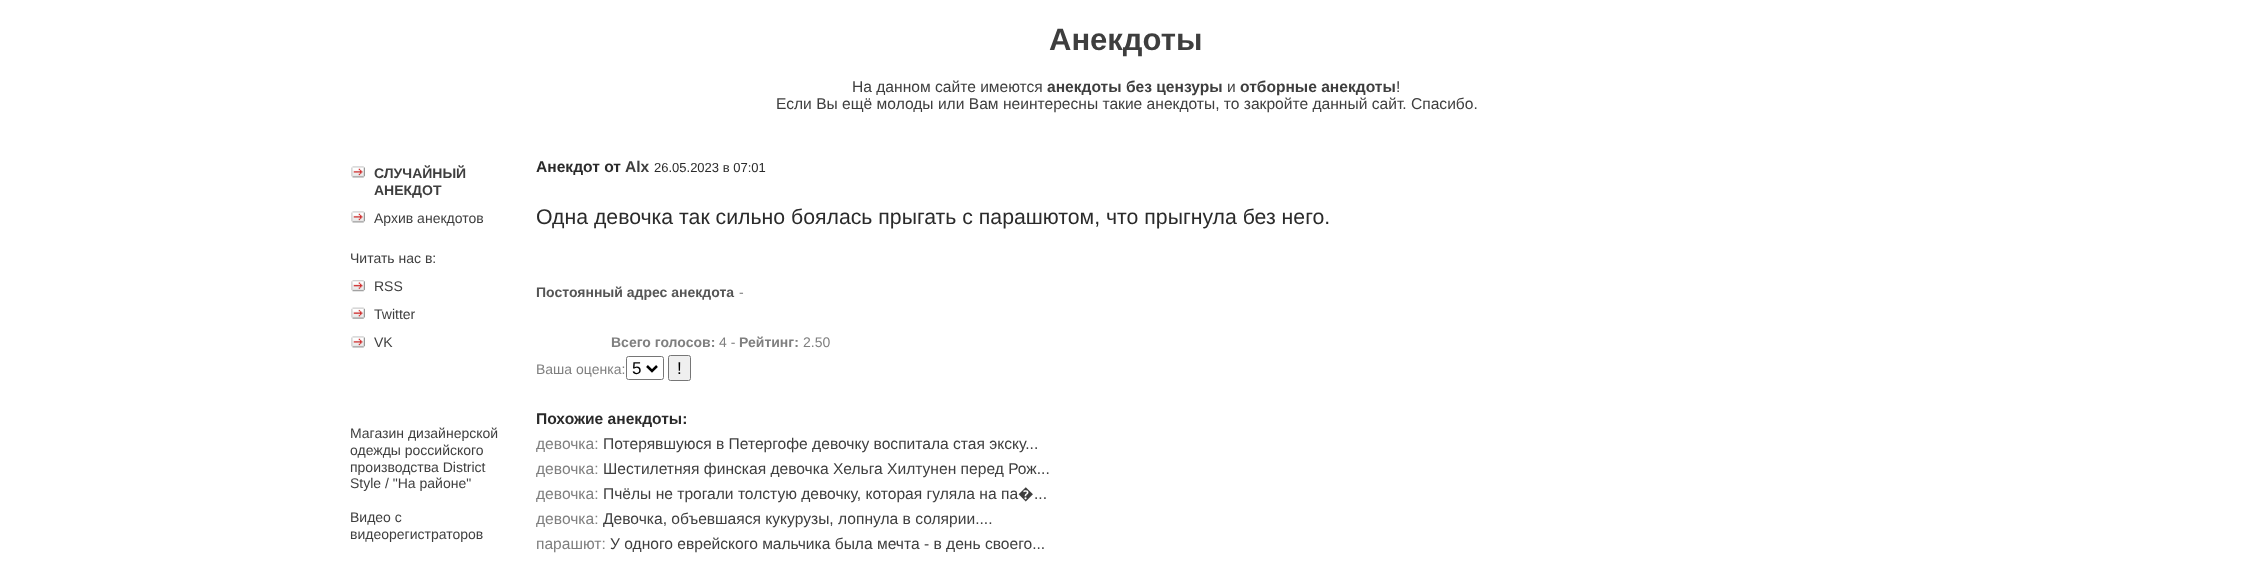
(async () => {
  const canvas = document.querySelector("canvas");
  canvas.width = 2252;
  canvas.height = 563;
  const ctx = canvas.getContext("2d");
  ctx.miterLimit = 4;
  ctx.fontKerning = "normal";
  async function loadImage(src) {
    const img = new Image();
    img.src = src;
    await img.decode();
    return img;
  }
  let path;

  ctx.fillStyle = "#ffffff";
  ctx.fillRect(0, 0, 2252, 563);
  ctx.drawImage(await loadImage("img/1.png"), 351, 166, 14, 12);
  ctx.drawImage(await loadImage("img/1.png"), 351, 211, 14, 12);
  ctx.drawImage(await loadImage("img/2.png"), 351, 280, 14, 12);
  ctx.drawImage(await loadImage("img/3.png"), 351, 307, 14, 12);
  ctx.drawImage(await loadImage("img/1.png"), 351, 336, 14, 12);
  ctx.beginPath();
  ctx.roundRect(626.5, 356.5, 37, 23, 2);
  ctx.strokeStyle = "#767676";
  ctx.stroke();
  path = new Path2D("M647 366L652 371L657 366");
  ctx.strokeStyle = "#000000";
  ctx.lineWidth = 2.5;
  ctx.stroke(path);
  ctx.fillStyle = "#efefef";
  ctx.beginPath();
  ctx.roundRect(668.5, 355.5, 22, 25, 2);
  ctx.fill();
  ctx.strokeStyle = "#767676";
  ctx.lineWidth = 1;
  ctx.stroke();
  ctx.font = "bold 31px Liberation Sans";
  ctx.fillStyle = "#3e3e3e";
  ctx.fillText("Анекдоты", 1049, 50);
  ctx.font = "15.6px Liberation Sans";
  ctx.fillText("На данном сайте имеются", 852, 92);
  ctx.font = "bold 15.6px Liberation Sans";
  ctx.fillText("анекдоты без цензуры", 1047, 92);
  ctx.font = "15.6px Liberation Sans";
  ctx.fillText("и", 1227, 92);
  ctx.font = "bold 15.6px Liberation Sans";
  ctx.fillText("отборные анекдоты", 1240, 92);
  ctx.font = "15.6px Liberation Sans";
  ctx.fillText("!", 1396, 92);
  ctx.fillText("Если Вы ещё молоды или Вам неинтересны такие анекдоты, то закройте данный сайт. Спасибо.", 776, 109);
  ctx.font = "bold 14px Liberation Sans";
  ctx.fillText("СЛУЧАЙНЫЙ", 374, 178);
  ctx.fillText("АНЕКДОТ", 374, 195);
  ctx.font = "14px Liberation Sans";
  for (const [text, x, y] of [
    ["Архив анекдотов", 374, 223],
    ["Читать нас в:", 350, 263],
    ["RSS", 374, 291],
    ["Twitter", 374, 319],
    ["VK", 374, 347],
    ["Магазин дизайнерской", 350, 438],
    ["одежды российского", 350, 455],
    ["производства District", 350, 472],
    ["Style / \"На районе\"", 350, 488],
    ["Видео с", 350, 522],
    ["видеорегистраторов", 350, 539],
  ]) {
    ctx.fillText(text, x, y);
  }
  ctx.font = "bold 15.6px Liberation Sans";
  ctx.fillStyle = "#2a2a2a";
  ctx.fillText("Анекдот от", 536, 172);
  ctx.fillStyle = "#3e3e3e";
  ctx.fillText("Alx", 625, 172);
  ctx.font = "13px Liberation Sans";
  ctx.fillStyle = "#2a2a2a";
  ctx.fillText("26.05.2023 в 07:01", 654, 172);
  ctx.font = "21.25px Liberation Sans";
  ctx.fillText("Одна девочка так сильно боялась прыгать с парашютом, что прыгнула без него.", 536, 224);
  ctx.font = "bold 14px Liberation Sans";
  ctx.fillStyle = "#555555";
  ctx.fillText("Постоянный адрес анекдота", 536, 297);
  ctx.font = "14px Liberation Sans";
  ctx.fillStyle = "#7f7f7f";
  ctx.fillText("-", 739, 297);
  ctx.font = "bold 14px Liberation Sans";
  ctx.fillText("Всего голосов:", 611, 347);
  ctx.font = "14px Liberation Sans";
  ctx.fillText("4 -", 719, 347);
  ctx.font = "bold 14px Liberation Sans";
  ctx.fillText("Рейтинг:", 739, 347);
  ctx.font = "14px Liberation Sans";
  ctx.fillText("2.50", 803, 347);
  ctx.fillText("Ваша оценка:", 536, 374);
  ctx.font = "17px Liberation Sans";
  ctx.fillStyle = "#000000";
  ctx.fillText("5", 632, 374);
  ctx.fillText("!", 677, 374);
  ctx.font = "bold 15.6px Liberation Sans";
  ctx.fillStyle = "#2a2a2a";
  ctx.fillText("Похожие анекдоты:", 536, 424);
  ctx.font = "15.6px Liberation Sans";
  ctx.fillStyle = "#7f7f7f";
  ctx.fillText("девочка:", 536, 449);
  ctx.fillStyle = "#3e3e3e";
  ctx.fillText("Потерявшуюся в Петергофе девочку воспитала стая экску...", 603, 449);
  ctx.fillStyle = "#7f7f7f";
  ctx.fillText("девочка:", 536, 474);
  ctx.fillStyle = "#3e3e3e";
  ctx.fillText("Шестилетняя финская девочка Хельга Хилтунен перед Рож...", 603, 474);
  ctx.fillStyle = "#7f7f7f";
  ctx.fillText("девочка:", 536, 499);
  ctx.fillStyle = "#3e3e3e";
  ctx.fillText("Пчёлы не трогали толстую девочку, которая гуляла на па", 603, 499);
  ctx.font = "15.6px Noto Sans";
  ctx.fillText("�", 1018, 499);
  ctx.font = "15.6px Liberation Sans";
  ctx.fillText("...", 1034, 499);
  ctx.fillStyle = "#7f7f7f";
  ctx.fillText("девочка:", 536, 524);
  ctx.fillStyle = "#3e3e3e";
  ctx.fillText("Девочка, объевшаяся кукурузы, лопнула в солярии....", 603, 524);
  ctx.fillStyle = "#7f7f7f";
  ctx.fillText("парашют:", 536, 549);
  ctx.fillStyle = "#3e3e3e";
  ctx.fillText("У одного еврейского мальчика была мечта - в день своего...", 610, 549);
})();
